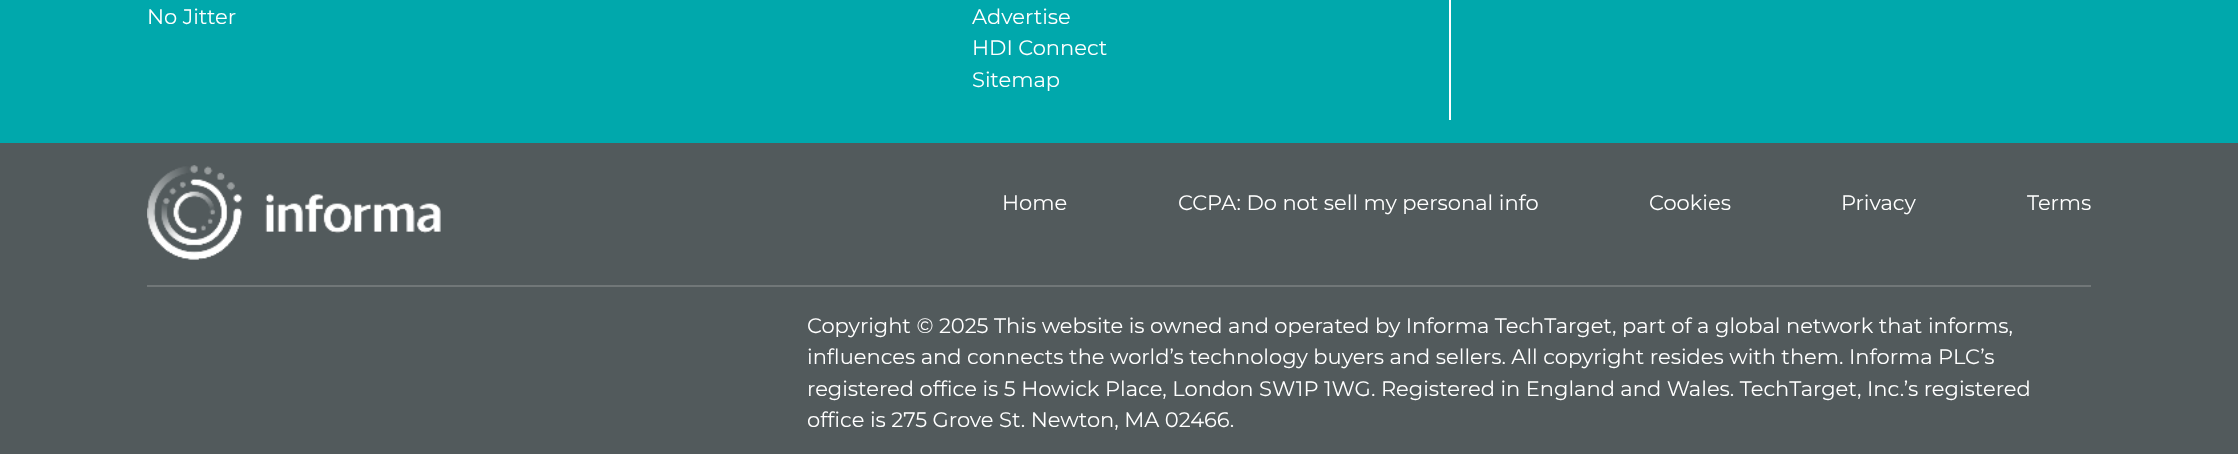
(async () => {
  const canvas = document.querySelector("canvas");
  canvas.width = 2238;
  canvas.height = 454;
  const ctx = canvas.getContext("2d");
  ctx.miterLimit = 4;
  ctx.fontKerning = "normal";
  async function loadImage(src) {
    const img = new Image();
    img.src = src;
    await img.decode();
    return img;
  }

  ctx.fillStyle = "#00a8ac";
  ctx.fillRect(0, 0, 2238, 454);
  ctx.fillStyle = "#ffffff";
  ctx.fillRect(1449, 0, 2, 120);
  ctx.fillStyle = "#525a5c";
  ctx.fillRect(0, 143, 2238, 311);
  ctx.drawImage(await loadImage("img/1.png"), 147, 165, 294, 95);
  ctx.fillStyle = "#717778";
  ctx.fillRect(147, 285, 1944, 2);
  ctx.font = "21px Montserrat";
  ctx.fillStyle = "#ffffff";
  for (const [text, x, y] of [
    ["No Jitter", 147, 24],
    ["Advertise", 972, 24],
    ["HDI Connect", 972, 55],
    ["Sitemap", 972, 87],
    ["Home", 1002, 210],
    ["CCPA: Do not sell my personal info", 1178, 210],
    ["Cookies", 1649, 210],
    ["Privacy", 1841, 210],
    ["Terms", 2027, 210],
    ["Copyright © 2025 This website is owned and operated by Informa TechTarget, part of a global network that informs,", 807, 333],
    ["influences and connects the world’s technology buyers and sellers. All copyright resides with them. Informa PLC’s", 807, 364],
    ["registered office is 5 Howick Place, London SW1P 1WG. Registered in England and Wales. TechTarget, Inc.’s registered", 807, 396],
    ["office is 275 Grove St. Newton, MA 02466.", 807, 427],
  ]) {
    ctx.fillText(text, x, y);
  }
})();
